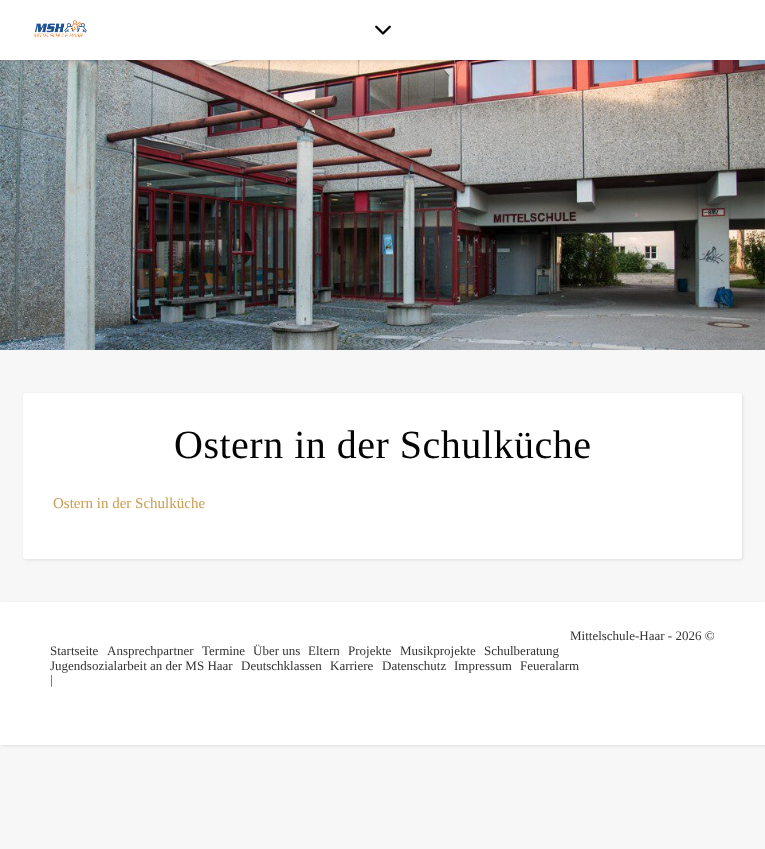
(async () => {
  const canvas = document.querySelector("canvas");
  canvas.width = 765;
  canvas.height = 849;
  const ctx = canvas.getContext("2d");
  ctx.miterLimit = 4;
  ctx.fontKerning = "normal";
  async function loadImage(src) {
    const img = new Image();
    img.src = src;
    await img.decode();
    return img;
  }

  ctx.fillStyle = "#f7f7f7";
  ctx.fillRect(0, 0, 765, 849);
  ctx.drawImage(await loadImage("img/1.png"), 0, 60, 765, 290);
  ctx.fillStyle = "rgba(0, 0, 0, 0.1)";
  ctx.filter = "blur(2.5px)";
  ctx.beginPath();
  ctx.rect(0, 1, 765, 60);
  ctx.fill();
  ctx.filter = "none";
  ctx.fillStyle = "#ffffff";
  ctx.fillRect(0, 0, 765, 60);
  ctx.drawImage(await loadImage("img/2.png"), 34, 20, 53, 18);
  ctx.drawImage(await loadImage("img/3.png"), 375, 25, 16, 10);
  ctx.fillStyle = "rgba(0, 0, 0, 0.1)";
  ctx.filter = "blur(1.5px)";
  ctx.beginPath();
  ctx.roundRect(24, 394, 719, 166, 3);
  ctx.fill();
  ctx.filter = "none";
  ctx.fillStyle = "#ffffff";
  ctx.beginPath();
  ctx.roundRect(23, 393, 719, 166, 3);
  ctx.fill();
  ctx.fillStyle = "rgba(0, 0, 0, 0.1)";
  ctx.filter = "blur(1.5px)";
  ctx.beginPath();
  ctx.rect(1, 603, 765, 143);
  ctx.fill();
  ctx.filter = "none";
  ctx.fillStyle = "#ffffff";
  ctx.fillRect(0, 602, 765, 143);
  ctx.letterSpacing = "0.5px";
  ctx.font = "40px Liberation Serif";
  ctx.fillStyle = "#030303";
  ctx.fillText("Ostern in der Schulküche", 174, 458);
  ctx.letterSpacing = "0px";
  ctx.font = "15px Liberation Serif";
  ctx.fillStyle = "#ca9b52";
  ctx.fillText("Ostern in der Schulküche", 53, 508);
  ctx.font = "13px Liberation Serif";
  ctx.fillStyle = "#333333";
  for (const [text, x, y] of [
    ["Mittelschule-Haar - 2026 ©", 570, 640],
    ["Startseite", 50, 655],
    ["Ansprechpartner", 107, 655],
    ["Termine", 202, 655],
    ["Über uns", 253, 655],
    ["Eltern", 308, 655],
    ["Projekte", 348, 655],
    ["Musikprojekte", 400, 655],
    ["Schulberatung", 484, 655],
    ["Jugendsozialarbeit an der MS Haar", 50, 670],
    ["Deutschklassen", 241, 670],
    ["Karriere", 330, 670],
    ["Datenschutz", 382, 670],
    ["Impressum", 454, 670],
    ["Feueralarm", 520, 670],
    ["|", 50, 684],
  ]) {
    ctx.fillText(text, x, y);
  }
})();
